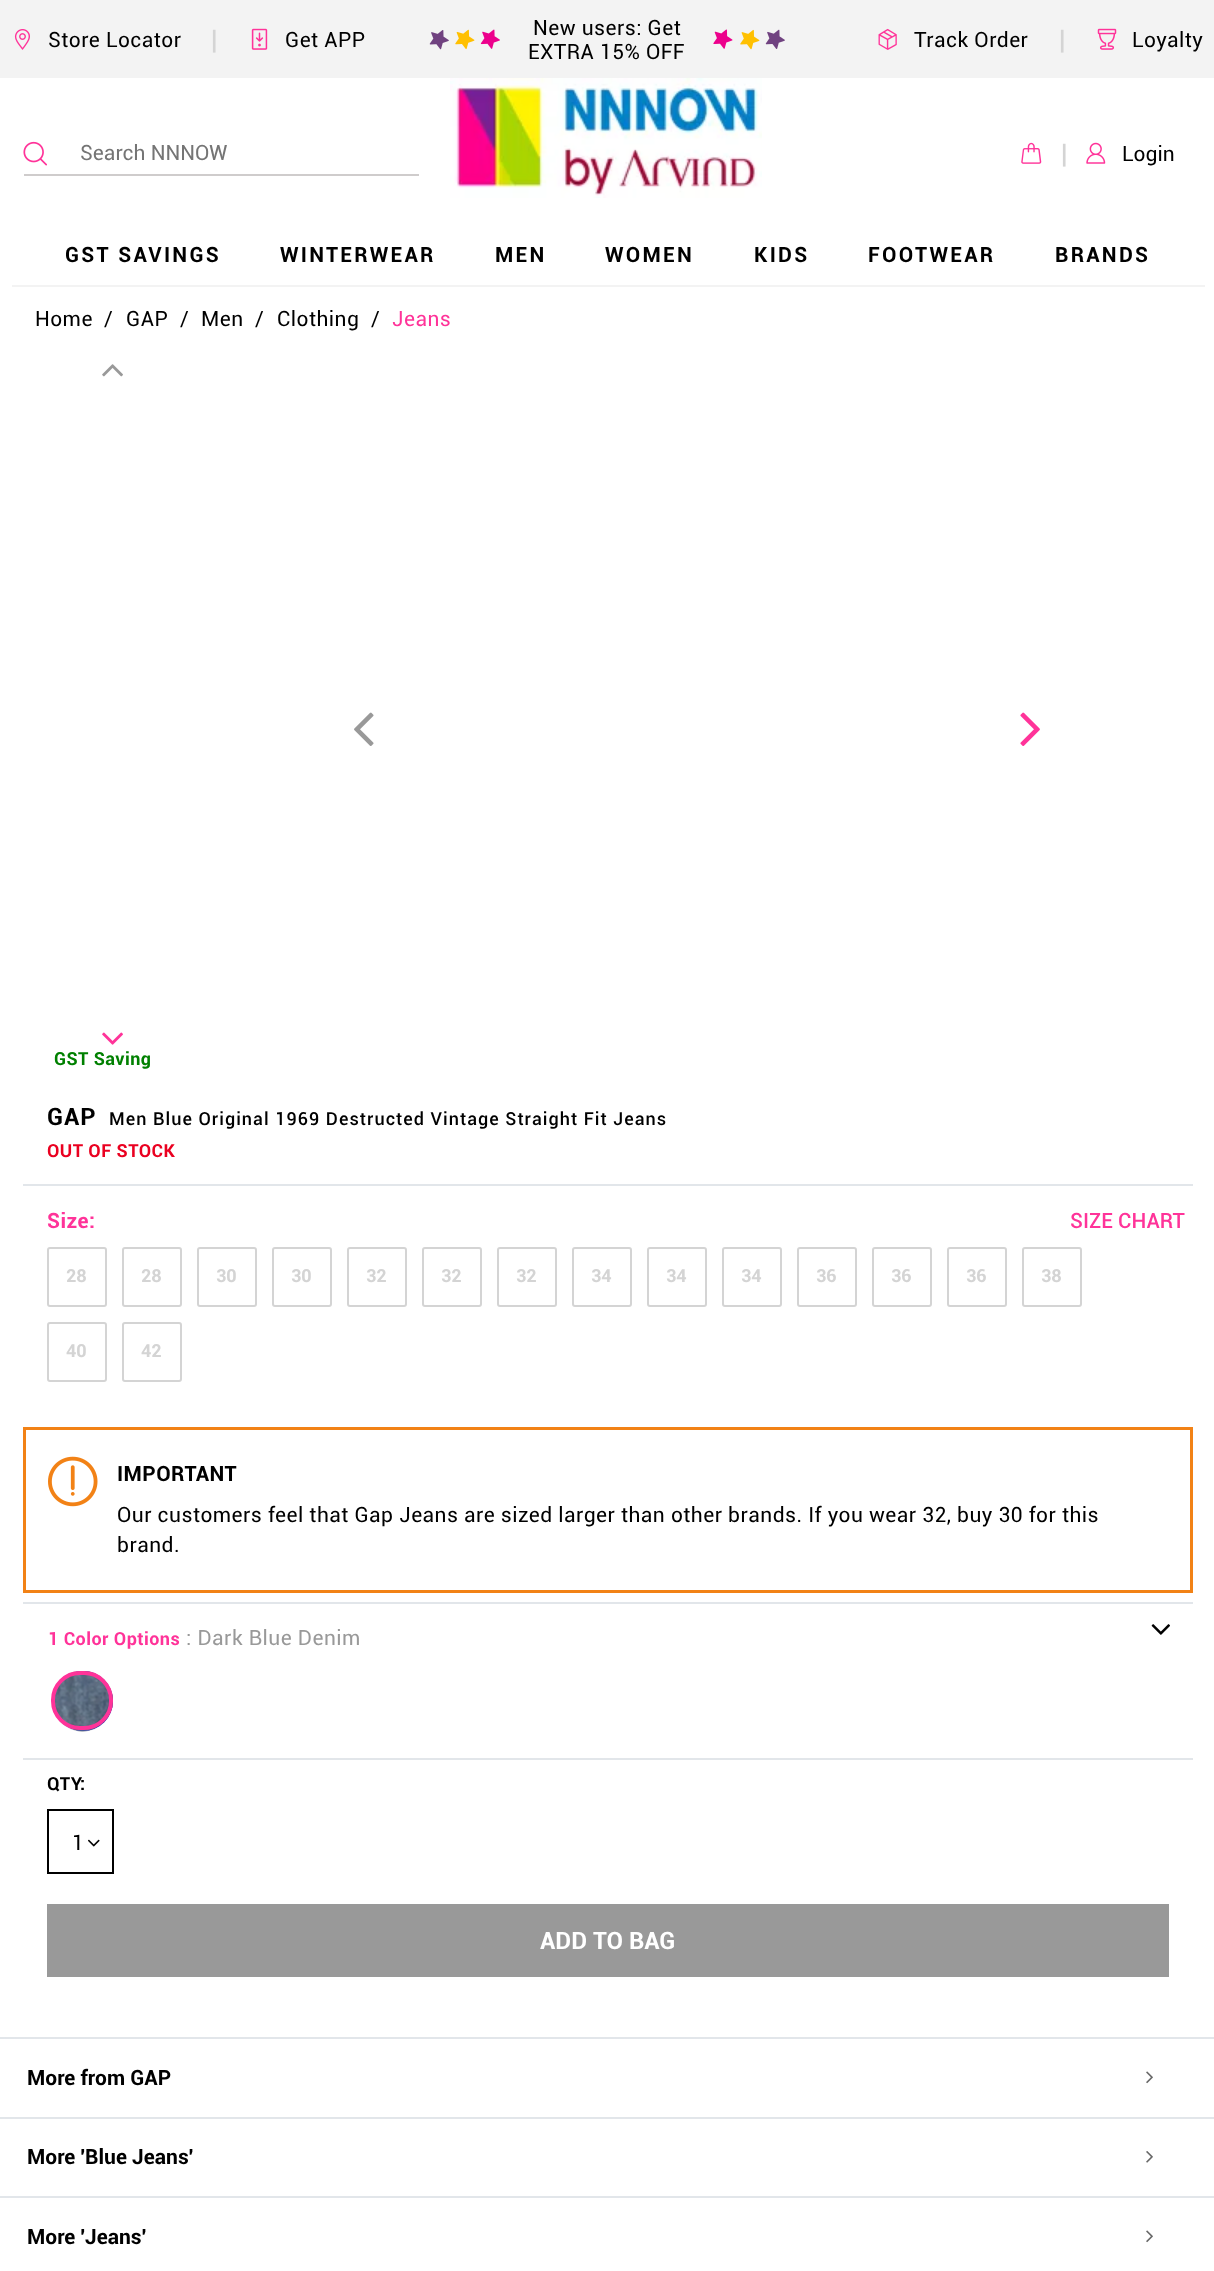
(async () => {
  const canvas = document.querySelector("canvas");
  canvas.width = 1214;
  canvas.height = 2271;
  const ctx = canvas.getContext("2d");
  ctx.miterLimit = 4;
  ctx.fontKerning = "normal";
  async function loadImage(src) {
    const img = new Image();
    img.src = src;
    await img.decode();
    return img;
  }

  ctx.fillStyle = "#ffffff";
  ctx.fillRect(0, 0, 1214, 2271);
  ctx.fillStyle = "#f3f3f3";
  ctx.fillRect(0, 0, 1214, 78);
  ctx.drawImage(await loadImage("img/1.png"), 14, 29, 16, 21);
  ctx.drawImage(await loadImage("img/2.png"), 251, 28, 17, 22);
  ctx.drawImage(await loadImage("img/3.png"), 429, 30, 20, 20);
  ctx.drawImage(await loadImage("img/4.png"), 455, 29, 20, 21);
  ctx.drawImage(await loadImage("img/5.png"), 480, 29, 20, 20);
  ctx.drawImage(await loadImage("img/6.png"), 713, 29, 20, 20);
  ctx.drawImage(await loadImage("img/7.png"), 740, 29, 20, 21);
  ctx.drawImage(await loadImage("img/8.png"), 765, 29, 20, 20);
  ctx.drawImage(await loadImage("img/9.png"), 878, 28, 19, 22);
  ctx.drawImage(await loadImage("img/10.png"), 1097, 28, 20, 22);
  ctx.drawImage(await loadImage("img/11.png"), 450, 78, 312, 120);
  ctx.fillStyle = "#cfcccc";
  ctx.fillRect(24, 174, 395, 2);
  ctx.drawImage(await loadImage("img/12.png"), 23, 141, 24, 25);
  ctx.drawImage(await loadImage("img/13.png"), 1021, 142, 21, 22);
  ctx.drawImage(await loadImage("img/14.png"), 1086, 142, 20, 22);
  ctx.fillStyle = "#f3f3f3";
  ctx.fillRect(12, 285, 1193, 2);
  ctx.drawImage(await loadImage("img/15.png"), 102, 364, 21, 13);
  ctx.drawImage(await loadImage("img/16.png"), 102, 1032, 21, 13);
  ctx.drawImage(await loadImage("img/17.png"), 354, 712, 20, 34);
  ctx.drawImage(await loadImage("img/18.png"), 1020, 712, 20, 34);
  ctx.fillStyle = "#e2e6ea";
  ctx.fillRect(23, 1184, 1170, 2);
  ctx.fillRect(23, 1602, 1170, 2);
  ctx.beginPath();
  ctx.roundRect(48, 1248, 58, 58, 2);
  ctx.strokeStyle = "#d4d4d4";
  ctx.lineWidth = 2;
  ctx.stroke();
  ctx.beginPath();
  ctx.roundRect(123, 1248, 58, 58, 2);
  ctx.stroke();
  ctx.beginPath();
  ctx.roundRect(198, 1248, 58, 58, 2);
  ctx.stroke();
  ctx.beginPath();
  ctx.roundRect(273, 1248, 58, 58, 2);
  ctx.stroke();
  ctx.beginPath();
  ctx.roundRect(348, 1248, 58, 58, 2);
  ctx.stroke();
  ctx.beginPath();
  ctx.roundRect(423, 1248, 58, 58, 2);
  ctx.stroke();
  ctx.beginPath();
  ctx.roundRect(498, 1248, 58, 58, 2);
  ctx.stroke();
  ctx.beginPath();
  ctx.roundRect(573, 1248, 58, 58, 2);
  ctx.stroke();
  ctx.beginPath();
  ctx.roundRect(648, 1248, 58, 58, 2);
  ctx.stroke();
  ctx.beginPath();
  ctx.roundRect(723, 1248, 58, 58, 2);
  ctx.stroke();
  ctx.beginPath();
  ctx.roundRect(798, 1248, 58, 58, 2);
  ctx.stroke();
  ctx.beginPath();
  ctx.roundRect(873, 1248, 58, 58, 2);
  ctx.stroke();
  ctx.beginPath();
  ctx.roundRect(948, 1248, 58, 58, 2);
  ctx.stroke();
  ctx.beginPath();
  ctx.roundRect(1023, 1248, 58, 58, 2);
  ctx.stroke();
  ctx.beginPath();
  ctx.roundRect(48, 1323, 58, 58, 2);
  ctx.stroke();
  ctx.beginPath();
  ctx.roundRect(123, 1323, 58, 58, 2);
  ctx.stroke();
  ctx.strokeStyle = "#f28216";
  ctx.lineWidth = 3;
  ctx.strokeRect(24.5, 1428.5, 1167, 163);
  ctx.drawImage(await loadImage("img/19.png"), 48, 1456, 50, 51);
  ctx.fillRect(23, 1758, 1170, 2);
  ctx.drawImage(await loadImage("img/20.png"), 1151, 1624, 19, 11);
  ctx.fillStyle = "#0000cc";
  ctx.beginPath();
  ctx.arc(83, 1701, 30, 0, Math.PI * 2);
  ctx.fill();
  ctx.drawImage(await loadImage("img/21.png"), 53, 1671, 60, 61);
  ctx.beginPath();
  ctx.roundRect(53, 1673, 58, 55, 27);
  ctx.strokeStyle = "#ff3399";
  ctx.lineWidth = 4;
  ctx.stroke();
  ctx.strokeStyle = "#000000";
  ctx.lineWidth = 2;
  ctx.strokeRect(48, 1810, 65, 63);
  ctx.drawImage(await loadImage("img/22.png"), 88, 1839, 12, 8);
  for (const [x, y, w, h, color] of [
    [47, 1904, 1122, 73, "#999999"],
    [0, 2037, 1214, 2, "#e2e6ea"],
    [0, 2117, 1214, 2, "#e2e6ea"],
  ]) {
    ctx.fillStyle = color;
    ctx.fillRect(x, y, w, h);
  }
  ctx.drawImage(await loadImage("img/23.png"), 1146, 2071, 7, 13);
  ctx.fillRect(0, 2196, 1214, 2);
  ctx.drawImage(await loadImage("img/24.png"), 1146, 2151, 7, 12);
  ctx.drawImage(await loadImage("img/23.png"), 1146, 2230, 7, 13);
  ctx.letterSpacing = "0.45px";
  ctx.font = "21px Roboto";
  ctx.fillStyle = "#000000";
  ctx.fillText("Store Locator", 48, 47);
  ctx.font = "27px Roboto";
  ctx.fillStyle = "#d4d4d4";
  ctx.fillText("|", 211, 49);
  ctx.font = "21px Roboto";
  ctx.fillStyle = "#000000";
  for (const [text, x, y] of [
    ["Get APP", 285, 47],
    ["New users: Get", 533, 35],
    ["EXTRA 15% OFF", 528, 59],
    ["Track Order", 914, 47],
  ]) {
    ctx.fillText(text, x, y);
  }
  ctx.font = "27px Roboto";
  ctx.fillStyle = "#d4d4d4";
  ctx.fillText("|", 1059, 49);
  ctx.font = "21px Roboto";
  ctx.fillStyle = "#000000";
  ctx.fillText("Loyalty", 1132, 47);
  ctx.letterSpacing = "0px";
  ctx.fillStyle = "#757575";
  ctx.fillText("Search NNNOW", 80, 160);
  ctx.letterSpacing = "0.45px";
  ctx.font = "27px Roboto";
  ctx.fillStyle = "#d4d4d4";
  ctx.fillText("|", 1061, 163);
  ctx.letterSpacing = "0px";
  ctx.font = "21px Roboto";
  ctx.fillStyle = "#000000";
  ctx.fillText("Login", 1122, 161);
  ctx.letterSpacing = "2.25px";
  ctx.font = "bold 21px Roboto";
  for (const [text, x, y] of [
    ["GST SAVINGS", 65, 262],
    ["WINTERWEAR", 280, 262],
    ["MEN", 495, 262],
    ["WOMEN", 605, 262],
    ["KIDS", 754, 262],
    ["FOOTWEAR", 868, 262],
    ["BRANDS", 1055, 262],
  ]) {
    ctx.fillText(text, x, y);
  }
  ctx.letterSpacing = "0.45px";
  ctx.font = "21px Roboto";
  for (const [text, x, y] of [
    ["Home", 35, 326],
    ["/", 104, 326],
    ["GAP", 126, 326],
    ["/", 180, 326],
    ["Men", 201, 326],
    ["/", 255, 326],
    ["Clothing", 277, 326],
    ["/", 371, 326],
  ]) {
    ctx.fillText(text, x, y);
  }
  ctx.fillStyle = "#ff3399";
  ctx.fillText("Jeans", 392, 326);
  ctx.font = "bold 18px Roboto";
  ctx.fillStyle = "#008000";
  ctx.fillText("GST Saving", 54, 1065);
  ctx.letterSpacing = "1.05px";
  ctx.font = "bold 24px Roboto";
  ctx.fillStyle = "#000000";
  ctx.fillText("GAP", 47, 1125);
  ctx.font = "500 18px Roboto";
  ctx.fillText("Men Blue Original 1969 Destructed Vintage Straight Fit Jeans", 109, 1125);
  ctx.letterSpacing = "0.45px";
  ctx.font = "bold 18px Roboto";
  ctx.fillStyle = "#ea0020";
  ctx.fillText("OUT OF STOCK", 47, 1157);
  ctx.font = "bold 21px Roboto";
  ctx.fillStyle = "#ff3399";
  ctx.fillText("Size:", 47, 1228);
  ctx.letterSpacing = "0px";
  ctx.font = "500 21px Roboto";
  ctx.fillText("SIZE CHART", 1070, 1228);
  ctx.font = "bold 18px Roboto";
  ctx.fillStyle = "#d4d4d4";
  for (const [text, x, y] of [
    ["28", 66, 1282],
    ["28", 141, 1282],
    ["30", 216, 1282],
    ["30", 291, 1282],
    ["32", 366, 1282],
    ["32", 441, 1282],
    ["32", 516, 1282],
    ["34", 591, 1282],
    ["34", 666, 1282],
    ["34", 741, 1282],
    ["36", 816, 1282],
    ["36", 891, 1282],
    ["36", 966, 1282],
    ["38", 1041, 1282],
    ["40", 66, 1357],
    ["42", 141, 1357],
  ]) {
    ctx.fillText(text, x, y);
  }
  ctx.letterSpacing = "0.45px";
  ctx.font = "bold 21px Roboto";
  ctx.fillStyle = "#000000";
  ctx.fillText("IMPORTANT", 117, 1481);
  ctx.font = "21px Roboto";
  ctx.fillText("Our customers feel that Gap Jeans are sized larger than other brands. If you wear 32, buy 30 for this", 117, 1522);
  ctx.fillText("brand.", 117, 1552);
  ctx.font = "bold 18px Roboto";
  ctx.fillStyle = "#ff3399";
  ctx.fillText("1 Color Options", 48, 1645);
  ctx.font = "21px Roboto";
  ctx.fillStyle = "#999999";
  ctx.fillText(": Dark Blue Denim", 186, 1645);
  ctx.font = "bold 18px Roboto";
  ctx.fillStyle = "#000000";
  ctx.fillText("QTY", 47, 1790);
  ctx.fillText(":", 80, 1790);
  ctx.font = "21px Roboto";
  ctx.fillText("1", 72, 1850);
  ctx.letterSpacing = "0px";
  ctx.font = "bold 24px Roboto";
  ctx.fillStyle = "#ffffff";
  ctx.fillText("ADD TO BAG", 540, 1949);
  ctx.font = "bold 21px Roboto";
  ctx.fillStyle = "#000000";
  for (const [text, x, y] of [
    ["More from GAP", 27, 2085],
    ["More 'Blue Jeans'", 27, 2164],
    ["More 'Jeans'", 27, 2244],
  ]) {
    ctx.fillText(text, x, y);
  }
})();
